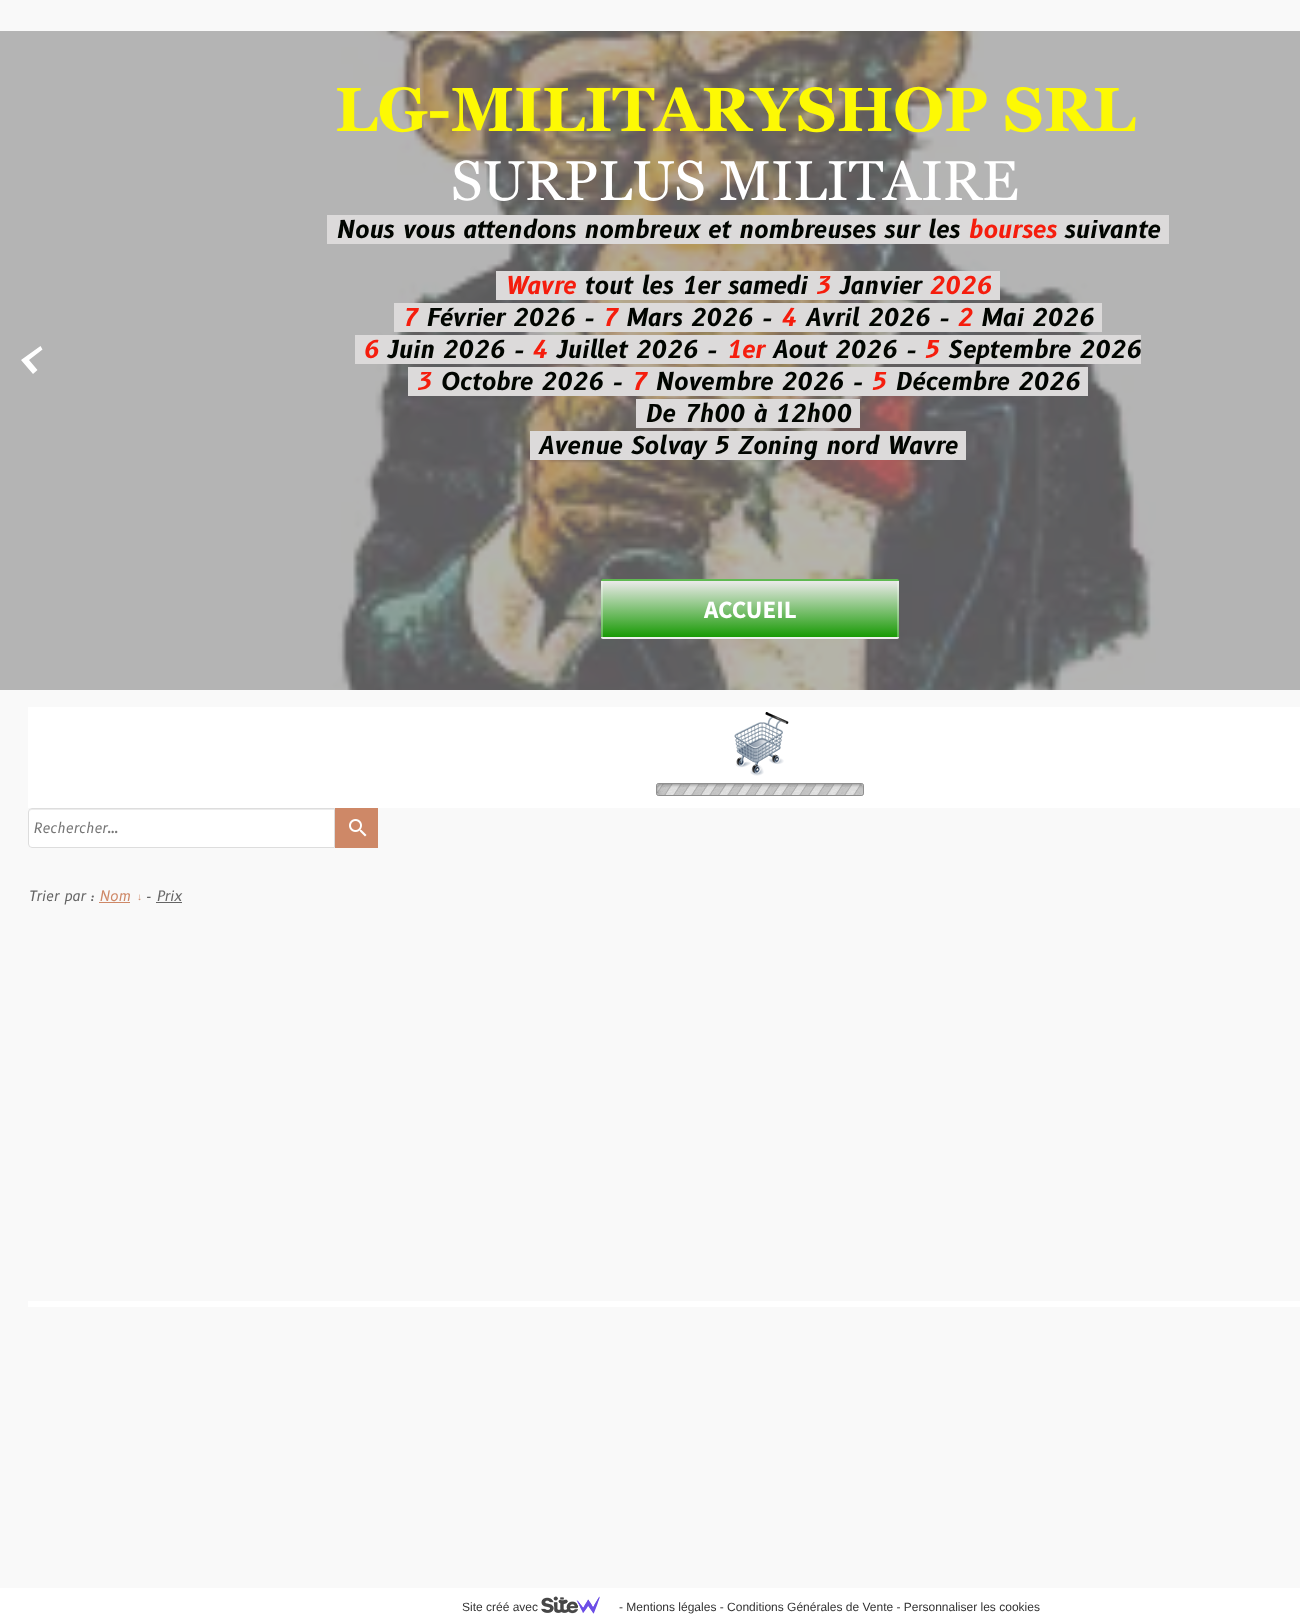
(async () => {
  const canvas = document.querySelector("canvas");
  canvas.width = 1300;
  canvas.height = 1619;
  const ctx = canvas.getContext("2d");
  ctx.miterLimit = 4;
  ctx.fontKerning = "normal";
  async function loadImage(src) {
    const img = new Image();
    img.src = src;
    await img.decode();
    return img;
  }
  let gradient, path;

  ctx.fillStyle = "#f9f9f9";
  ctx.fillRect(0, 0, 1300, 1619);
  ctx.drawImage(await loadImage("img/1.png"), 0, 31, 1300, 659);
  ctx.fillStyle = "#ffffff";
  path = new Path2D("M21 360L40.5 346L42.5 349.5L29 360L37.5 370L33 374Z");
  ctx.fill(path);
  for (const [x, y, w, h, color] of [
    [327, 215, 842, 29, "#dcdada"],
    [496, 271, 495, 29, "#dcdada"],
    [394, 303, 708, 29, "#dcdada"],
    [355, 335, 786, 29, "#dcdada"],
    [408, 367, 680, 29, "#dcdada"],
    [636, 399, 224, 29, "#dcdada"],
    [530, 431, 436, 29, "#dcdada"],
  ]) {
    ctx.fillStyle = color;
    ctx.fillRect(x, y, w, h);
  }
  gradient = ctx.createLinearGradient(750, 525, 750, 581);
  gradient.addColorStop(0, "#ebeaea");
  gradient.addColorStop(1, "#189a04");
  ctx.fillStyle = gradient;
  ctx.beginPath();
  ctx.roundRect(601, 579, 298, 2, [2, 2, 0, 0]);
  ctx.fill();
  gradient = ctx.createLinearGradient(750, 581, 750, 637);
  gradient.addColorStop(0, "#ebeaea");
  gradient.addColorStop(1, "#189a04");
  ctx.fillStyle = gradient;
  ctx.fillRect(601, 581, 298, 56);
  gradient = ctx.createLinearGradient(750, 637, 750, 693);
  gradient.addColorStop(0, "#ebeaea");
  gradient.addColorStop(1, "#189a04");
  ctx.fillStyle = gradient;
  ctx.beginPath();
  ctx.roundRect(601, 637, 298, 2, [0, 0, 2, 2]);
  ctx.fill();
  ctx.beginPath();
  ctx.roundRect(602, 580, 296, 58, 1);
  ctx.strokeStyle = "rgba(255, 255, 255, 0.3)";
  ctx.lineWidth = 2;
  ctx.stroke();
  ctx.fillStyle = "#ffffff";
  ctx.fillRect(28, 707, 1272, 101);
  ctx.drawImage(await loadImage("img/2.png"), 734, 712, 55, 64);
  ctx.drawImage(await loadImage("img/3.png"), 656, 783, 208, 13);
  ctx.beginPath();
  ctx.roundRect(28, 808, 307, 40, [4, 0, 0, 4]);
  ctx.fill();
  ctx.fillStyle = "#ececec";
  path = new Path2D("M32 810H334V809H32C30 809 29 811 29 813C29 811 30 810 32 810Z");
  ctx.fill(path);
  ctx.beginPath();
  ctx.roundRect(28.5, 808.5, 306, 39, [3.5, 0, 0, 3.5]);
  ctx.strokeStyle = "#dddddd";
  ctx.lineWidth = 1;
  ctx.stroke();
  ctx.fillStyle = "#ce8867";
  ctx.fillRect(335, 808, 43, 40);
  ctx.drawImage(await loadImage("img/4.png"), 349, 819, 18, 18);
  for (const [x, y, w, h, color] of [
    [99, 902, 31, 1, "#ce8867"],
    [156, 902, 26, 1, "#656565"],
    [28, 1301, 1272, 6, "#ffffff"],
    [0, 1588, 1300, 31, "#ffffff"],
  ]) {
    ctx.fillStyle = color;
    ctx.fillRect(x, y, w, h);
  }
  ctx.drawImage(await loadImage("img/5.png"), 541, 1596, 59, 18);
  ctx.font = "bold 62px Georgia";
  ctx.fillStyle = "#fdf904";
  ctx.fillText("LG-MILITARYSHOP SRL", 335, 131);
  ctx.font = "56px Georgia";
  ctx.fillStyle = "#ffffff";
  ctx.fillText("SURPLUS MILITAIRE", 451, 200);
  ctx.font = "italic bold 24px 'B612'";
  ctx.fillStyle = "#010500";
  ctx.fillText("Nous vous attendons nombreux et nombreuses sur les", 336, 238);
  ctx.fillStyle = "#f51d0d";
  ctx.fillText("bourses", 968, 238);
  ctx.fillStyle = "#010500";
  ctx.fillText("suivante", 1064, 238);
  ctx.fillStyle = "#f51d0d";
  ctx.fillText("Wavre", 505, 294);
  ctx.fillStyle = "#010500";
  ctx.fillText("tout les 1er samedi", 584, 294);
  ctx.fillStyle = "#f51d0d";
  ctx.fillText("3", 815, 294);
  ctx.fillStyle = "#010500";
  ctx.fillText("Janvier", 839, 294);
  ctx.fillStyle = "#f51d0d";
  ctx.fillText("2026", 929, 294);
  ctx.fillStyle = "#dcdada";
  ctx.fillRect(991, 271, 9, 29);
  ctx.fillStyle = "#f51d0d";
  ctx.fillText("7", 402, 326);
  ctx.fillStyle = "#010500";
  ctx.fillText("Février 2026 -", 426, 326);
  ctx.fillStyle = "#f51d0d";
  ctx.fillText("7", 602, 326);
  ctx.fillStyle = "#010500";
  ctx.fillText("Mars 2026 -", 626, 326);
  ctx.fillStyle = "#f51d0d";
  ctx.fillText("4", 781, 326);
  ctx.fillStyle = "#010500";
  ctx.fillText("Avril 2026 -", 805, 326);
  ctx.fillStyle = "#f51d0d";
  ctx.fillText("2", 957, 326);
  ctx.fillStyle = "#010500";
  ctx.fillText("Mai 2026", 981, 326);
  ctx.fillStyle = "#f51d0d";
  ctx.fillText("6", 363, 358);
  ctx.fillStyle = "#010500";
  ctx.fillText("Juin 2026 -", 387, 358);
  ctx.fillStyle = "#f51d0d";
  ctx.fillText("4", 532, 358);
  ctx.fillStyle = "#010500";
  ctx.fillText("Juillet 2026 -", 556, 358);
  ctx.fillStyle = "#f51d0d";
  ctx.fillText("1er", 726, 358);
  ctx.fillStyle = "#010500";
  ctx.fillText("Aout 2026 -", 772, 358);
  ctx.fillStyle = "#f51d0d";
  ctx.fillText("5", 924, 358);
  ctx.fillStyle = "#010500";
  ctx.fillText("Septembre 2026", 948, 358);
  ctx.fillStyle = "#f51d0d";
  ctx.fillText("3", 416, 390);
  ctx.fillStyle = "#010500";
  ctx.fillText("Octobre 2026 -", 440, 390);
  ctx.fillStyle = "#f51d0d";
  ctx.fillText("7", 631, 390);
  ctx.fillStyle = "#010500";
  ctx.fillText("Novembre 2026 -", 655, 390);
  ctx.fillStyle = "#f51d0d";
  ctx.fillText("5", 871, 390);
  ctx.fillStyle = "#010500";
  for (const [text, x, y] of [
    ["Décembre 2026", 895, 390],
    ["De 7h00 à 12h00", 645, 422],
    ["Avenue Solvay 5 Zoning nord Wavre", 538, 454],
  ]) {
    ctx.fillText(text, x, y);
  }
  ctx.font = "bold 25px Source Sans Pro";
  ctx.fillStyle = "#ffffff";
  ctx.fillText("ACCUEIL", 704, 618);
  ctx.font = "italic 14px 'B612'";
  ctx.fillStyle = "#757575";
  ctx.fillText("Rechercher...", 33, 833);
  ctx.fillStyle = "#656565";
  ctx.fillText("Trier par :", 28, 901);
  ctx.fillStyle = "#ce8867";
  ctx.fillText("Nom", 99, 901);
  ctx.font = "italic 10px Liberation Serif";
  ctx.fillText("↓", 137, 900);
  ctx.font = "italic 14px 'B612'";
  ctx.fillStyle = "#656565";
  ctx.fillText("- Prix", 145, 901);
  ctx.font = "12px Liberation Sans";
  ctx.fillStyle = "#333333";
  ctx.fillText("Site créé avec", 462, 1611);
  ctx.fillText("- Mentions légales - Conditions Générales de Vente - Personnaliser les cookies", 619, 1611);
})();
